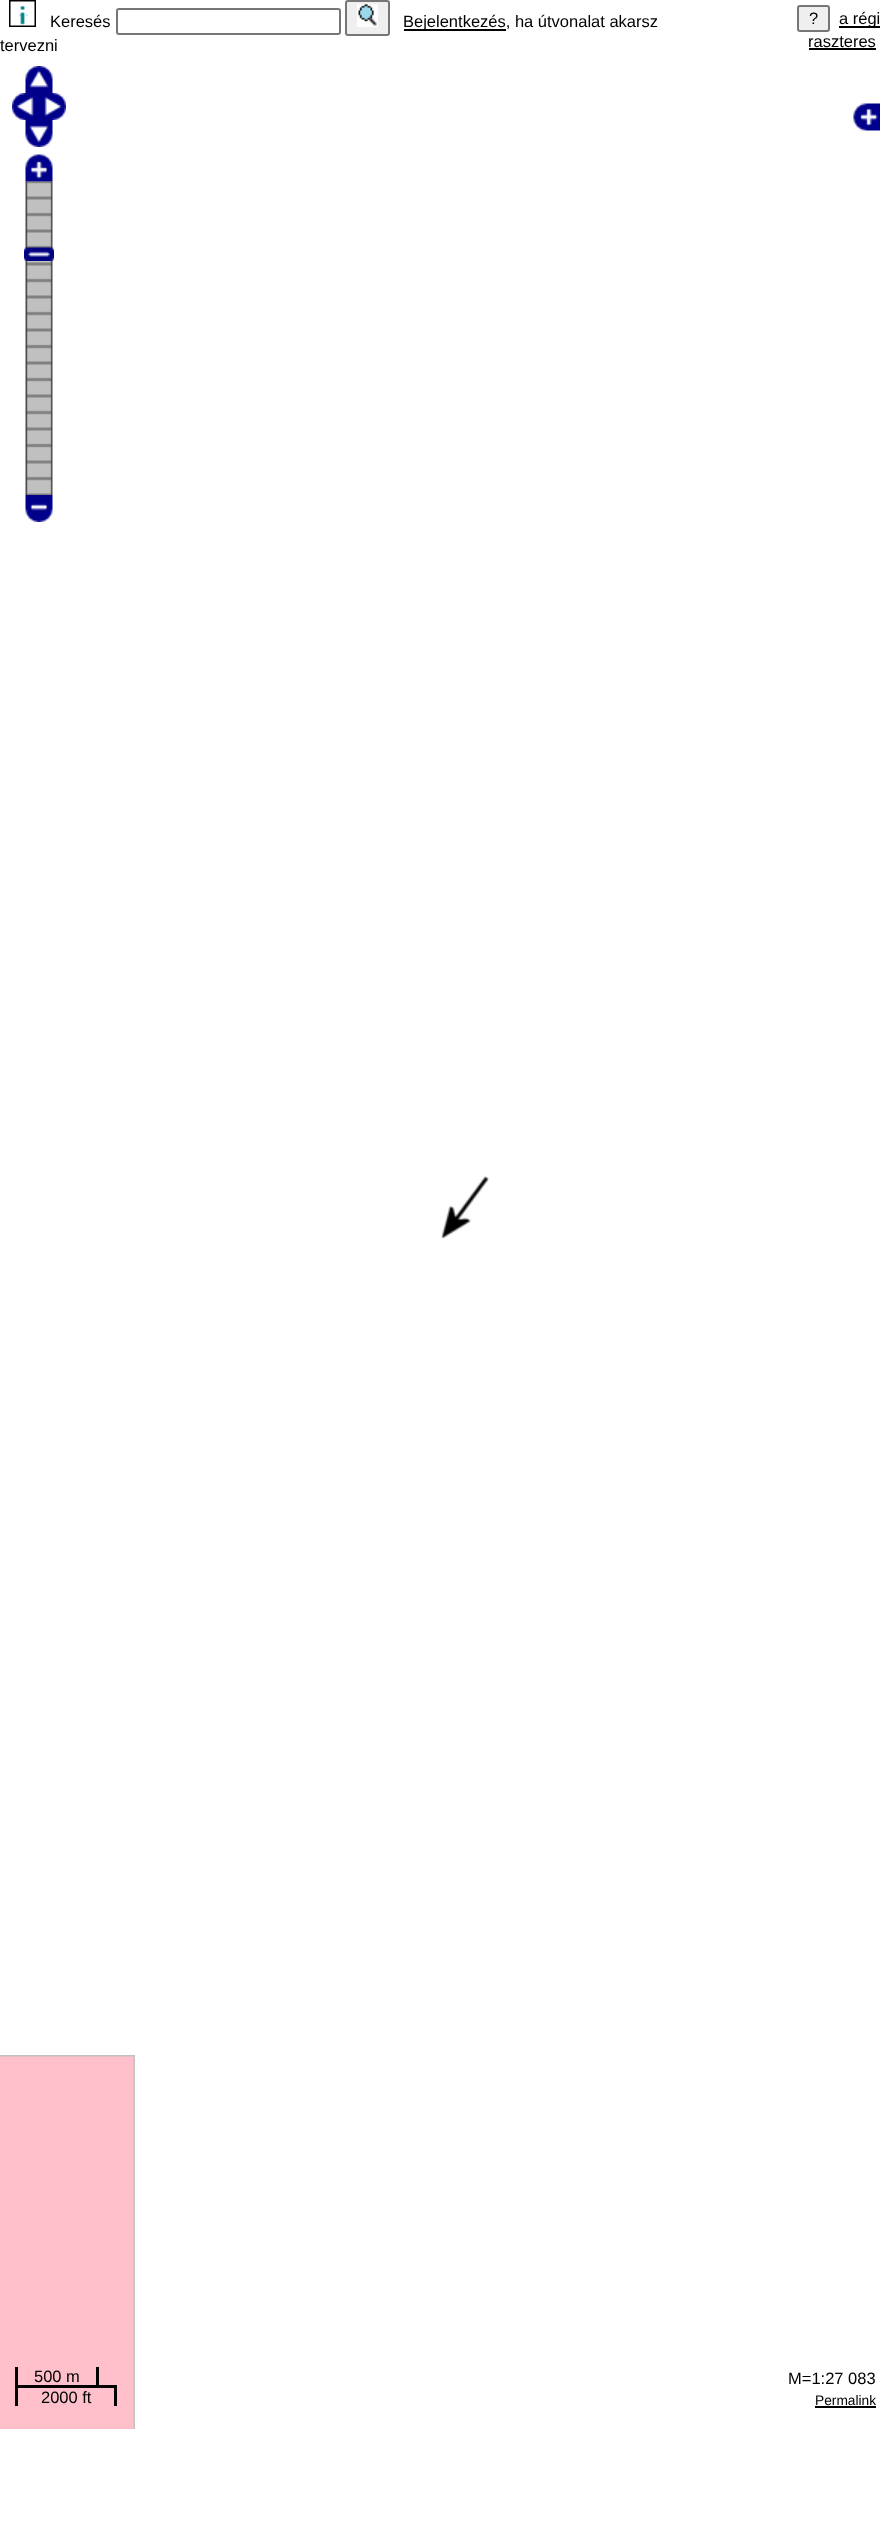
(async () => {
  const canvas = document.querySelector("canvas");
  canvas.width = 880;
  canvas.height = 2523;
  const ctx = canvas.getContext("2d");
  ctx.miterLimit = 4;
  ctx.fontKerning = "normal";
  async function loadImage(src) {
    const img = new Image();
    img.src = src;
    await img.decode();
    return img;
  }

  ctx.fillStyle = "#ffffff";
  ctx.fillRect(0, 0, 880, 2523);
  ctx.strokeStyle = "#000000";
  ctx.lineWidth = 2;
  ctx.strokeRect(10, 1, 25, 25);
  ctx.drawImage(await loadImage("img/1.png"), 10, 1, 25, 25);
  ctx.beginPath();
  ctx.roundRect(117, 9, 223, 25, 2);
  ctx.strokeStyle = "#767676";
  ctx.stroke();
  ctx.fillStyle = "#efefef";
  ctx.beginPath();
  ctx.roundRect(346, 1, 43, 34, 2);
  ctx.fill();
  ctx.stroke();
  ctx.drawImage(await loadImage("img/2.png"), 357, 4, 21, 23);
  ctx.fillStyle = "#000000";
  ctx.fillRect(404, 29, 102, 2);
  ctx.fillStyle = "#efefef";
  ctx.beginPath();
  ctx.roundRect(798, 6, 31, 25, 2);
  ctx.fill();
  ctx.stroke();
  ctx.fillStyle = "#000000";
  ctx.fillRect(839, 26, 41, 2);
  ctx.fillRect(809, 48, 67, 2);
  ctx.drawImage(await loadImage("img/3.png"), 25, 66, 28, 27);
  ctx.drawImage(await loadImage("img/4.png"), 12, 93, 27, 27);
  ctx.drawImage(await loadImage("img/5.png"), 39, 93, 27, 27);
  ctx.drawImage(await loadImage("img/6.png"), 25, 120, 28, 27);
  ctx.drawImage(await loadImage("img/7.png"), 25, 154, 28, 28);
  ctx.drawImage(await loadImage("img/8.png"), 25, 181, 28, 314);
  ctx.drawImage(await loadImage("img/9.png"), 24, 247, 30, 14);
  ctx.drawImage(await loadImage("img/10.png"), 25, 495, 28, 27);
  ctx.drawImage(await loadImage("img/11.png"), 853, 103, 27, 28);
  ctx.drawImage(await loadImage("img/12.png"), 441, 1176, 49, 63);
  ctx.fillStyle = "#ffc0cb";
  ctx.fillRect(0, 2056, 134, 373);
  ctx.drawImage(await loadImage("img/13.png"), 0, 2055, 135, 374);
  for (const [x, y, w, h, color] of [
    [96, 2367, 3, 21, "#000000"],
    [15, 2367, 3, 21, "#000000"],
    [15, 2385, 102, 3, "#000000"],
    [114, 2385, 3, 21, "#000000"],
    [15, 2385, 3, 21, "#000000"],
    [815, 2406, 61, 2, "#000000"],
  ]) {
    ctx.fillStyle = color;
    ctx.fillRect(x, y, w, h);
  }
  ctx.font = "16.5px Liberation Sans";
  for (const [text, x, y] of [
    ["Keresés", 50, 27],
    ["Bejelentkezés, ha útvonalat akarsz", 403, 27],
    ["tervezni", 0, 51],
    ["?", 809, 24],
    ["a régi", 839, 24],
    ["raszteres", 808, 47],
    ["500 m", 34, 2382],
    ["2000 ft", 41, 2403],
    ["M=1:27 083", 788, 2384],
  ]) {
    ctx.fillText(text, x, y);
  }
  ctx.font = "13.75px Liberation Sans";
  ctx.fillText("Permalink", 815, 2405);
})();
